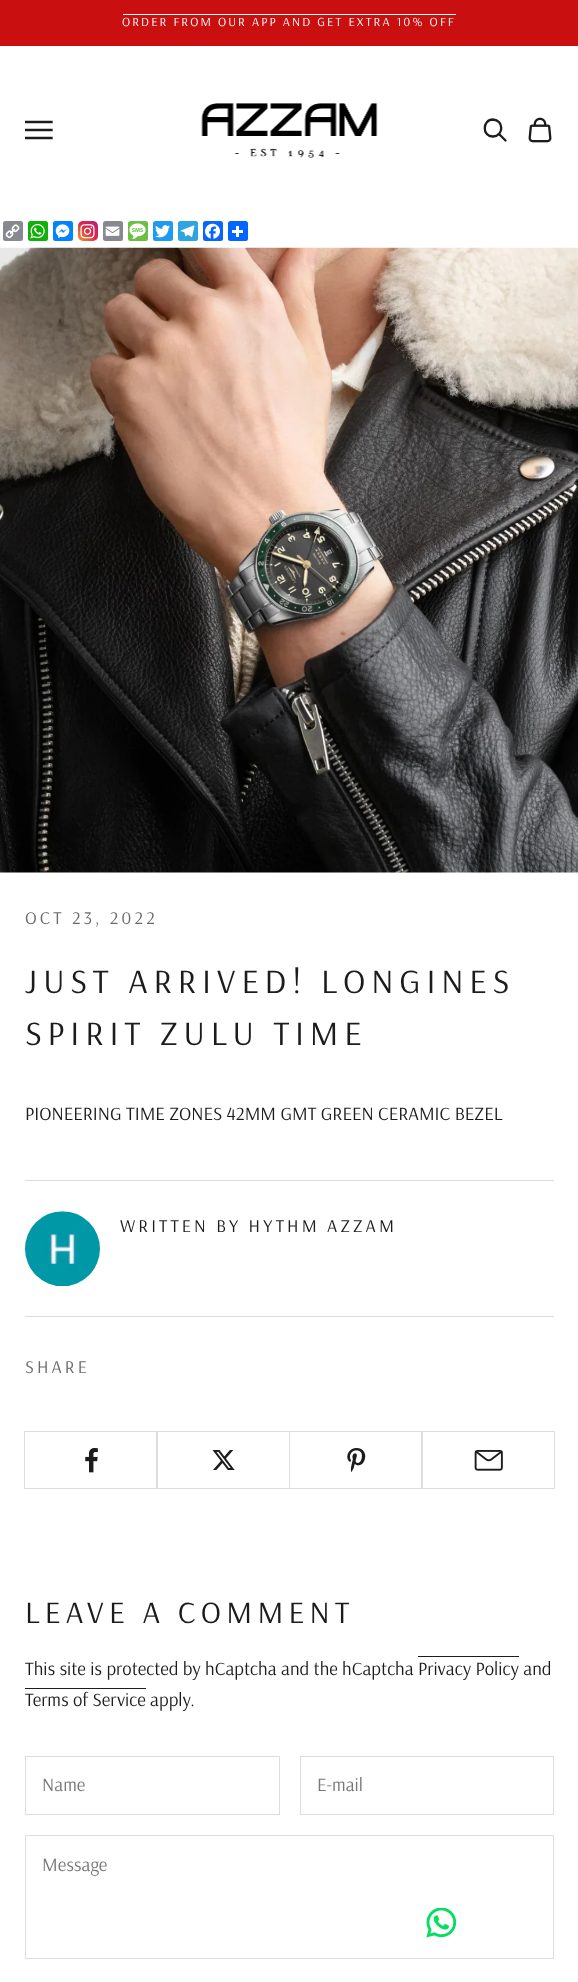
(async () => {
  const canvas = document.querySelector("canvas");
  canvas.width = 578;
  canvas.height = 1982;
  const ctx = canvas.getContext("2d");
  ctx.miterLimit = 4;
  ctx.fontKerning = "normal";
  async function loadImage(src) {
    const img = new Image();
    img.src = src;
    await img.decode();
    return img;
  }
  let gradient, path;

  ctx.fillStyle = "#ffffff";
  ctx.fillRect(0, 0, 578, 1982);
  ctx.fillStyle = "#c90f0f";
  ctx.fillRect(0, 0, 578, 46);
  ctx.fillStyle = "#ffffff";
  ctx.fillRect(123, 14, 333, 1);
  ctx.save();
  ctx.beginPath();
  ctx.rect(25, 116, 28, 28);
  ctx.clip();
  path = new Path2D("M26 138H51.5M26 130H51.5M26 122H51.5");
  ctx.strokeStyle = "#1c1c1c";
  ctx.lineWidth = 2.3;
  ctx.lineCap = "square";
  ctx.stroke(path);
  ctx.restore();
  ctx.drawImage(await loadImage("img/1.png"), 201, 103, 177, 55);
  path = new Path2D("M493 119.5C482 119.5 482 137 493 136.5C504 136 504 120 493 119.5Z");
  ctx.strokeStyle = "#1c1c1c";
  ctx.lineWidth = 2.3;
  ctx.stroke(path);
  path = new Path2D("M499.5 134.5L505.5 140.5");
  ctx.lineCap = "round";
  ctx.stroke(path);
  ctx.drawImage(await loadImage("img/2.png"), 528, 117, 24, 26);
  ctx.fillStyle = "#888990";
  ctx.beginPath();
  ctx.roundRect(3, 221, 20, 20, 2.5);
  ctx.fill();
  ctx.drawImage(await loadImage("img/3.png"), 5, 224, 15, 15);
  ctx.fillStyle = "#12af0a";
  ctx.beginPath();
  ctx.roundRect(28, 221, 20, 20, 2.5);
  ctx.fill();
  ctx.drawImage(await loadImage("img/4.png"), 30, 224, 15, 15);
  ctx.fillStyle = "#0084ff";
  ctx.beginPath();
  ctx.roundRect(53, 221, 20, 20, 2.5);
  ctx.fill();
  ctx.drawImage(await loadImage("img/5.png"), 55, 224, 15, 14);
  gradient = ctx.createLinearGradient(78, 241, 98, 221);
  gradient.addColorStop(0, "#f09433");
  gradient.addColorStop(0.25, "#e6683c");
  gradient.addColorStop(0.5, "#dc2743");
  gradient.addColorStop(0.75, "#cc2366");
  gradient.addColorStop(1, "#bc1888");
  ctx.fillStyle = gradient;
  ctx.beginPath();
  ctx.roundRect(78, 221, 20, 20, 5);
  ctx.fill();
  ctx.drawImage(await loadImage("img/6.png"), 80, 224, 15, 15);
  ctx.fillStyle = "#888990";
  ctx.beginPath();
  ctx.roundRect(103, 221, 20, 20, 2.5);
  ctx.fill();
  ctx.drawImage(await loadImage("img/7.png"), 105, 226, 15, 10);
  ctx.fillStyle = "#6cbe45";
  ctx.beginPath();
  ctx.roundRect(128, 221, 20, 20, 2.5);
  ctx.fill();
  ctx.drawImage(await loadImage("img/8.png"), 129, 223, 17, 16);
  ctx.fillStyle = "#1d9bf0";
  ctx.beginPath();
  ctx.roundRect(153, 221, 20, 20, 2.5);
  ctx.fill();
  ctx.drawImage(await loadImage("img/9.png"), 155, 225, 15, 13);
  ctx.fillStyle = "#2ca5e0";
  ctx.beginPath();
  ctx.roundRect(178, 221, 20, 20, 2.5);
  ctx.fill();
  ctx.drawImage(await loadImage("img/10.png"), 180, 225, 15, 12);
  ctx.fillStyle = "#0866ff";
  ctx.beginPath();
  ctx.roundRect(203, 221, 20, 20, 2.5);
  ctx.fill();
  ctx.drawImage(await loadImage("img/11.png"), 205, 223, 15, 16);
  ctx.fillStyle = "#0166ff";
  ctx.beginPath();
  ctx.roundRect(228, 221, 20, 20, 2.5);
  ctx.fill();
  ctx.fillStyle = "#ffffff";
  ctx.fillRect(236, 226, 3, 11);
  ctx.fillRect(232, 230, 11, 3);
  ctx.drawImage(await loadImage("img/12.png"), 0, 247, 578, 626);
  ctx.fillStyle = "#dddddd";
  ctx.fillRect(25, 1180, 529, 1);
  ctx.fillRect(25, 1316, 529, 1);
  ctx.drawImage(await loadImage("img/13.png"), 25, 1211, 75, 76);
  ctx.strokeStyle = "#dddddd";
  ctx.lineWidth = 1;
  ctx.strokeRect(24.5, 1431.5, 133, 57);
  ctx.drawImage(await loadImage("img/14.png"), 85, 1448, 13, 25);
  ctx.strokeRect(156.5, 1431.5, 133, 57);
  ctx.drawImage(await loadImage("img/15.png"), 212, 1450, 23, 20);
  ctx.strokeRect(289.5, 1431.5, 133, 57);
  ctx.drawImage(await loadImage("img/16.png"), 347, 1448, 19, 24);
  ctx.strokeRect(421.5, 1431.5, 133, 57);
  ctx.drawImage(await loadImage("img/17.png"), 474, 1450, 29, 21);
  ctx.fillStyle = "#1c1c1c";
  ctx.fillRect(418, 1656, 101, 1);
  ctx.fillRect(25, 1688, 121, 1);
  ctx.strokeRect(25.5, 1756.5, 254, 58);
  ctx.strokeRect(300.5, 1756.5, 253, 58);
  ctx.strokeRect(25.5, 1835.5, 528, 123);
  ctx.drawImage(await loadImage("img/18.png"), 426, 1908, 30, 30);
  ctx.letterSpacing = "2.1px";
  ctx.font = "12.5px Arsenal";
  ctx.fillStyle = "#ffffff";
  ctx.fillText("ORDER FROM OUR APP AND GET EXTRA 10% OFF", 122, 26);
  ctx.letterSpacing = "3.1px";
  ctx.font = "18px Arsenal";
  ctx.fillStyle = "#6b6b6b";
  ctx.fillText("OCT 23, 2022", 25, 924);
  ctx.letterSpacing = "5.8px";
  ctx.font = "34.25px Arsenal";
  ctx.fillStyle = "#1c1c1c";
  ctx.fillText("JUST ARRIVED! LONGINES", 25, 993);
  ctx.fillText("SPIRIT ZULU TIME", 25, 1045);
  ctx.letterSpacing = "0px";
  ctx.font = "18.75px Arsenal";
  ctx.fillText("PIONEERING TIME ZONES 42MM GMT GREEN CERAMIC BEZEL", 25, 1120);
  ctx.letterSpacing = "3.1px";
  ctx.font = "18px Arsenal";
  ctx.fillText("WRITTEN BY HYTHM AZZAM", 120, 1232);
  ctx.fillStyle = "#6b6b6b";
  ctx.fillText("SHARE", 25, 1373);
  ctx.letterSpacing = "5.25px";
  ctx.font = "31px Arsenal";
  ctx.fillStyle = "#1c1c1c";
  ctx.fillText("LEAVE A COMMENT", 25, 1623);
  ctx.letterSpacing = "0px";
  ctx.font = "18.75px Arsenal";
  ctx.fillText("This site is protected by hCaptcha and the hCaptcha Privacy Policy and", 25, 1675);
  ctx.fillText("Terms of Service apply.", 25, 1706);
  ctx.fillStyle = "#777777";
  for (const [text, x, y] of [
    ["Name", 42, 1791],
    ["E-mail", 317, 1791],
    ["Message", 42, 1871],
  ]) {
    ctx.fillText(text, x, y);
  }
})();
